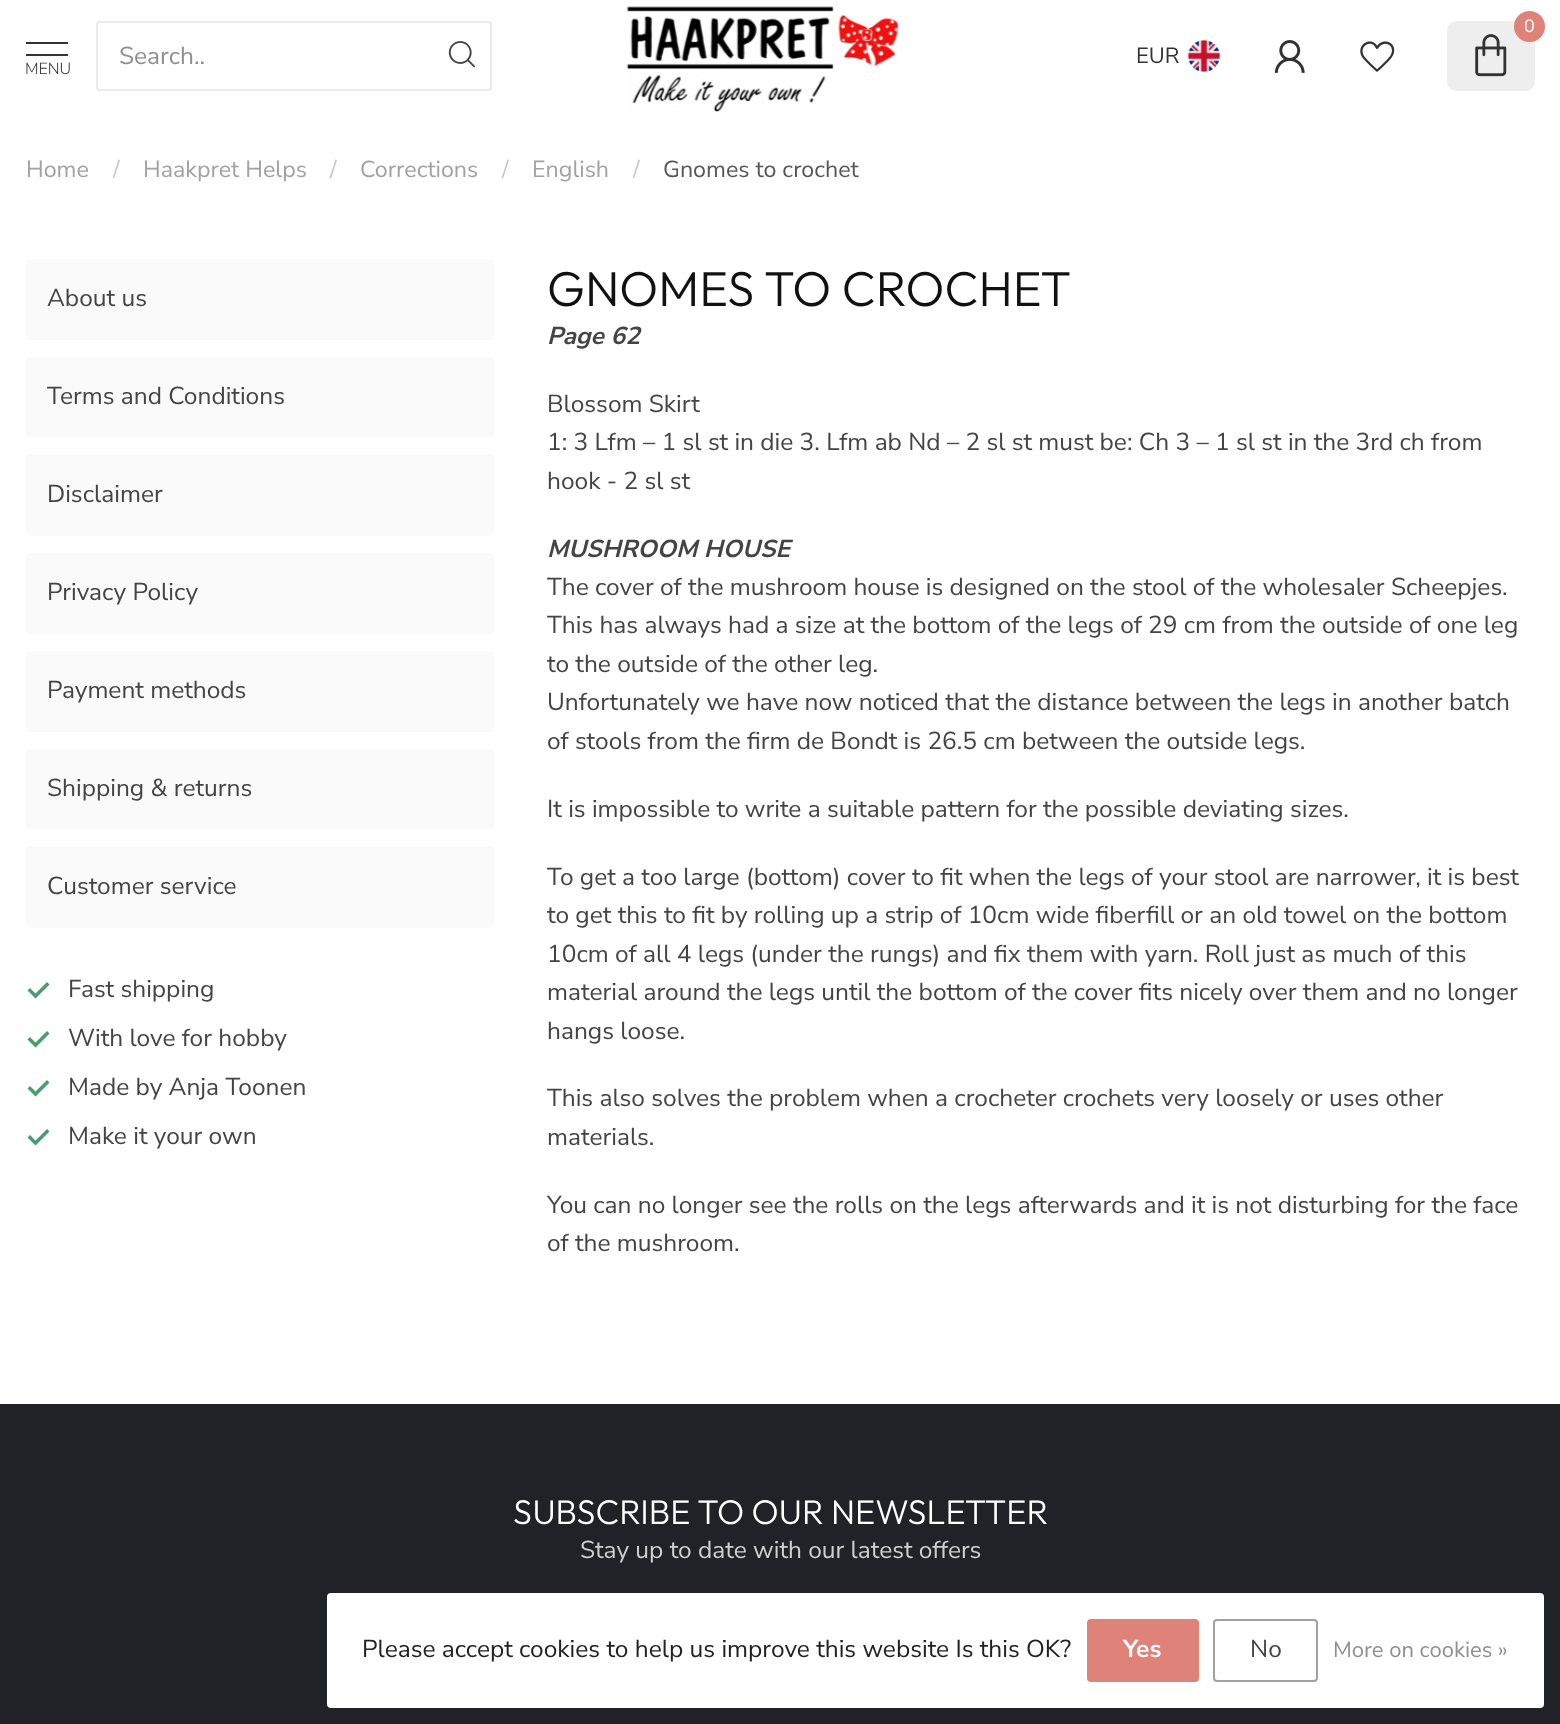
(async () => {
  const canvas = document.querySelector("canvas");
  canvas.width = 1560;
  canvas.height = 1724;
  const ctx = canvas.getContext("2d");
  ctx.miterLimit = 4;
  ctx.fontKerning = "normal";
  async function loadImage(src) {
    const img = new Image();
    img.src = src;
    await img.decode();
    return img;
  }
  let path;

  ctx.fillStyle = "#ffffff";
  ctx.fillRect(0, 0, 1560, 1724);
  ctx.beginPath();
  ctx.roundRect(97, 22, 394, 68, 3);
  ctx.strokeStyle = "#eaeaea";
  ctx.lineWidth = 2;
  ctx.stroke();
  ctx.drawImage(await loadImage("img/1.png"), 448, 41, 27, 27);
  ctx.fillStyle = "#333333";
  ctx.fillRect(26, 42, 42, 2);
  ctx.fillRect(26, 54, 42, 2);
  ctx.drawImage(await loadImage("img/2.png"), 626, 6, 273, 106);
  ctx.fillStyle = "#eeeeee";
  ctx.beginPath();
  ctx.roundRect(1447, 21, 88, 70, 9);
  ctx.fill();
  ctx.fillStyle = "#df8279";
  ctx.beginPath();
  ctx.arc(1529.5, 26.5, 15.5, 0, Math.PI * 2);
  ctx.fill();
  ctx.drawImage(await loadImage("img/3.png"), 1475, 34, 32, 43);
  ctx.drawImage(await loadImage("img/4.png"), 1187, 40, 33, 32);
  ctx.drawImage(await loadImage("img/5.png"), 1274, 40, 31, 33);
  ctx.drawImage(await loadImage("img/6.png"), 1360, 41, 35, 31);
  ctx.fillStyle = "#fafafa";
  ctx.beginPath();
  ctx.roundRect(26, 259, 468, 81, 4);
  ctx.fill();
  ctx.beginPath();
  ctx.roundRect(26, 357, 468, 81, 4);
  ctx.fill();
  ctx.beginPath();
  ctx.roundRect(26, 455, 468, 81, 4);
  ctx.fill();
  ctx.beginPath();
  ctx.roundRect(26, 553, 468, 81, 4);
  ctx.fill();
  ctx.beginPath();
  ctx.roundRect(26, 651, 468, 81, 4);
  ctx.fill();
  ctx.beginPath();
  ctx.roundRect(26, 749, 468, 81, 4);
  ctx.fill();
  ctx.beginPath();
  ctx.roundRect(26, 847, 468, 81, 4);
  ctx.fill();
  ctx.fillStyle = "#489c6d";
  path = new Path2D("M35.5 998.5L27.5 990.5L30 988L35.5 993.5L47 982L49.5 984.5Z");
  ctx.fill(path);
  path = new Path2D("M35.5 1047.5L27.5 1039.5L30 1037L35.5 1042.5L47 1031L49.5 1033.5Z");
  ctx.fill(path);
  path = new Path2D("M35.5 1096.5L27.5 1088.5L30 1086L35.5 1091.5L47 1080L49.5 1082.5Z");
  ctx.fill(path);
  path = new Path2D("M35.5 1145.5L27.5 1137.5L30 1135L35.5 1140.5L47 1129L49.5 1131.5Z");
  ctx.fill(path);
  ctx.fillStyle = "#212227";
  ctx.fillRect(0, 1404, 1560, 320);
  ctx.fillStyle = "#ffffff";
  ctx.beginPath();
  ctx.roundRect(327, 1593, 1217, 115, 4);
  ctx.fill();
  ctx.fillStyle = "#df8279";
  ctx.beginPath();
  ctx.roundRect(1087, 1619, 112, 63, 4);
  ctx.fill();
  ctx.beginPath();
  ctx.roundRect(1214, 1620, 103, 61, 3);
  ctx.strokeStyle = "#a1a1a1";
  ctx.stroke();
  ctx.font = "24.5px Nunito Sans";
  ctx.fillStyle = "#8f8f8f";
  ctx.fillText("Search..", 119, 64);
  ctx.font = "300 16px Nunito Sans";
  ctx.fillStyle = "#333333";
  ctx.fillText("MENU", 25, 74);
  ctx.font = "18px Nunito Sans";
  ctx.fillStyle = "#ffffff";
  ctx.fillText("0", 1524, 32);
  ctx.font = "22px Nunito Sans";
  ctx.fillStyle = "#333333";
  ctx.fillText("EUR", 1136, 63);
  ctx.font = "23.25px Nunito Sans";
  ctx.fillStyle = "#a2a2a2";
  ctx.fillText("Home", 26, 177);
  ctx.fillStyle = "#c7c7c7";
  ctx.fillText("/", 113, 177);
  ctx.fillStyle = "#a2a2a2";
  ctx.fillText("Haakpret Helps", 143, 177);
  ctx.fillStyle = "#c7c7c7";
  ctx.fillText("/", 330, 177);
  ctx.fillStyle = "#a2a2a2";
  ctx.fillText("Corrections", 360, 177);
  ctx.fillStyle = "#c7c7c7";
  ctx.fillText("/", 502, 177);
  ctx.fillStyle = "#a2a2a2";
  ctx.fillText("English", 532, 177);
  ctx.fillStyle = "#c7c7c7";
  ctx.fillText("/", 633, 177);
  ctx.fillStyle = "#575757";
  ctx.fillText("Gnomes to crochet", 663, 177);
  ctx.font = "24.5px Nunito Sans";
  ctx.fillStyle = "#444444";
  for (const [text, x, y] of [
    ["About us", 47, 306],
    ["Terms and Conditions", 47, 404],
    ["Disclaimer", 47, 502],
    ["Privacy Policy", 47, 600],
    ["Payment methods", 47, 698],
    ["Shipping & returns", 47, 796],
    ["Customer service", 47, 894],
    ["Fast shipping", 68, 997],
    ["With love for hobby", 68, 1046],
    ["Made by Anja Toonen", 68, 1095],
    ["Make it your own", 68, 1144],
  ]) {
    ctx.fillText(text, x, y);
  }
  ctx.font = "300 49px Outfit";
  ctx.fillStyle = "#111111";
  ctx.fillText("GNOMES TO CROCHET", 547, 306);
  ctx.font = "italic bold 24.5px Nunito Sans";
  ctx.fillStyle = "#444444";
  ctx.fillText("Page 62", 547, 344);
  ctx.font = "24.5px Nunito Sans";
  for (const [text, x, y] of [
    ["Blossom Skirt", 547, 412],
    ["1: 3 Lfm – 1 sl st in die 3. Lfm ab Nd – 2 sl st must be: Ch 3 – 1 sl st in the 3rd ch from", 547, 450],
    ["hook - 2 sl st", 547, 489],
  ]) {
    ctx.fillText(text, x, y);
  }
  ctx.font = "italic bold 24.5px Nunito Sans";
  ctx.fillText("MUSHROOM HOUSE", 547, 557);
  ctx.font = "24.5px Nunito Sans";
  for (const [text, x, y] of [
    ["The cover of the mushroom house is designed on the stool of the wholesaler Scheepjes.", 547, 595],
    ["This has always had a size at the bottom of the legs of 29 cm from the outside of one leg", 547, 633],
    ["to the outside of the other leg.", 547, 672],
    ["Unfortunately we have now noticed that the distance between the legs in another batch", 547, 710],
    ["of stools from the firm de Bondt is 26.5 cm between the outside legs.", 547, 749],
    ["It is impossible to write a suitable pattern for the possible deviating sizes.", 547, 817],
    ["To get a too large (bottom) cover to fit when the legs of your stool are narrower, it is best", 547, 885],
    ["to get this to fit by rolling up a strip of 10cm wide fiberfill or an old towel on the bottom", 547, 923],
    ["10cm of all 4 legs (under the rungs) and fix them with yarn. Roll just as much of this", 547, 962],
    ["material around the legs until the bottom of the cover fits nicely over them and no longer", 547, 1000],
    ["hangs loose.", 547, 1039],
    ["This also solves the problem when a crocheter crochets very loosely or uses other", 547, 1106],
    ["materials.", 547, 1145],
    ["You can no longer see the rolls on the legs afterwards and it is not disturbing for the face", 547, 1213],
    ["of the mushroom.", 547, 1251],
  ]) {
    ctx.fillText(text, x, y);
  }
  ctx.font = "300 34.25px Outfit";
  ctx.fillStyle = "#ffffff";
  ctx.fillText("SUBSCRIBE TO OUR NEWSLETTER", 513, 1524);
  ctx.font = "24.5px Nunito Sans";
  ctx.fillStyle = "#cfcfcf";
  ctx.fillText("Stay up to date with our latest offers", 580, 1558);
  ctx.fillStyle = "#222222";
  ctx.fillText("Please accept cookies to help us improve this website Is this OK?", 362, 1657);
  ctx.font = "bold 24.5px Nunito Sans";
  ctx.fillStyle = "#ffffff";
  ctx.fillText("Yes", 1123, 1657);
  ctx.font = "24.5px Nunito Sans";
  ctx.fillStyle = "#444444";
  ctx.fillText("No", 1250, 1657);
  ctx.font = "22px Nunito Sans";
  ctx.fillStyle = "#8f8f8f";
  ctx.fillText("More on cookies »", 1333, 1657);
})();
